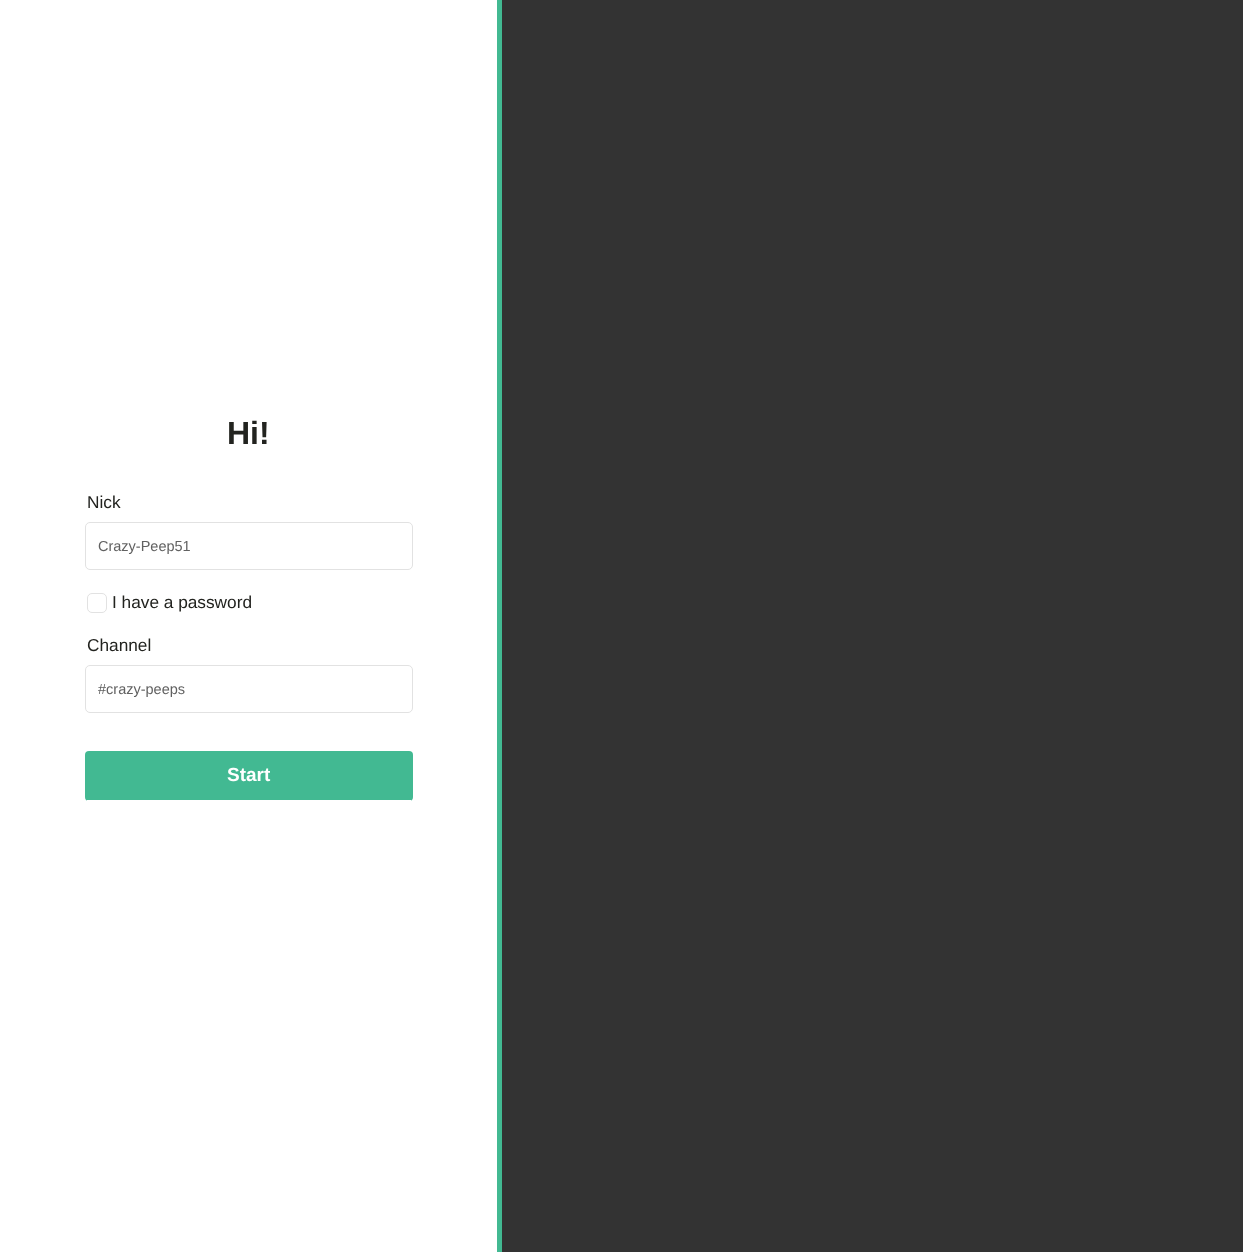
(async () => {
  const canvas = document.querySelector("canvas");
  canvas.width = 1243;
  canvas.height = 1252;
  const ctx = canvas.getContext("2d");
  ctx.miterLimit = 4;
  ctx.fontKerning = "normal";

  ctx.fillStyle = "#ffffff";
  ctx.fillRect(0, 0, 1243, 1252);
  ctx.beginPath();
  ctx.roundRect(85.5, 522.5, 327, 47, 4.5);
  ctx.strokeStyle = "#e2e2e2";
  ctx.stroke();
  ctx.beginPath();
  ctx.roundRect(87.5, 593.5, 19, 19, 4.5);
  ctx.stroke();
  ctx.beginPath();
  ctx.roundRect(85.5, 665.5, 327, 47, 4.5);
  ctx.stroke();
  ctx.fillStyle = "#42b992";
  ctx.beginPath();
  ctx.roundRect(85, 751, 328, 50, 4);
  ctx.fill();
  for (const [x, y, w, h, color] of [
    [87, 800, 324, 1, "#ffffff"],
    [502, 0, 741, 1252, "#333333"],
    [497, 0, 5, 1252, "#42b992"],
  ]) {
    ctx.fillStyle = color;
    ctx.fillRect(x, y, w, h);
  }
  ctx.font = "bold 32px Liberation Sans";
  ctx.fillStyle = "#22231f";
  ctx.fillText("Hi!", 227, 444);
  ctx.font = "17.25px Liberation Sans";
  ctx.fillText("Nick", 87, 508);
  ctx.font = "14.5px Liberation Sans";
  ctx.fillStyle = "#616161";
  ctx.fillText("Crazy-Peep51", 98, 551);
  ctx.font = "17.25px Liberation Sans";
  ctx.fillStyle = "#22231f";
  ctx.fillText("I have a password", 112, 608);
  ctx.fillText("Channel", 87, 651);
  ctx.font = "14.5px Liberation Sans";
  ctx.fillStyle = "#616161";
  ctx.fillText("#crazy-peeps", 98, 694);
  ctx.font = "bold 19px Liberation Sans";
  ctx.fillStyle = "#ffffff";
  ctx.fillText("Start", 227, 781);
})();
